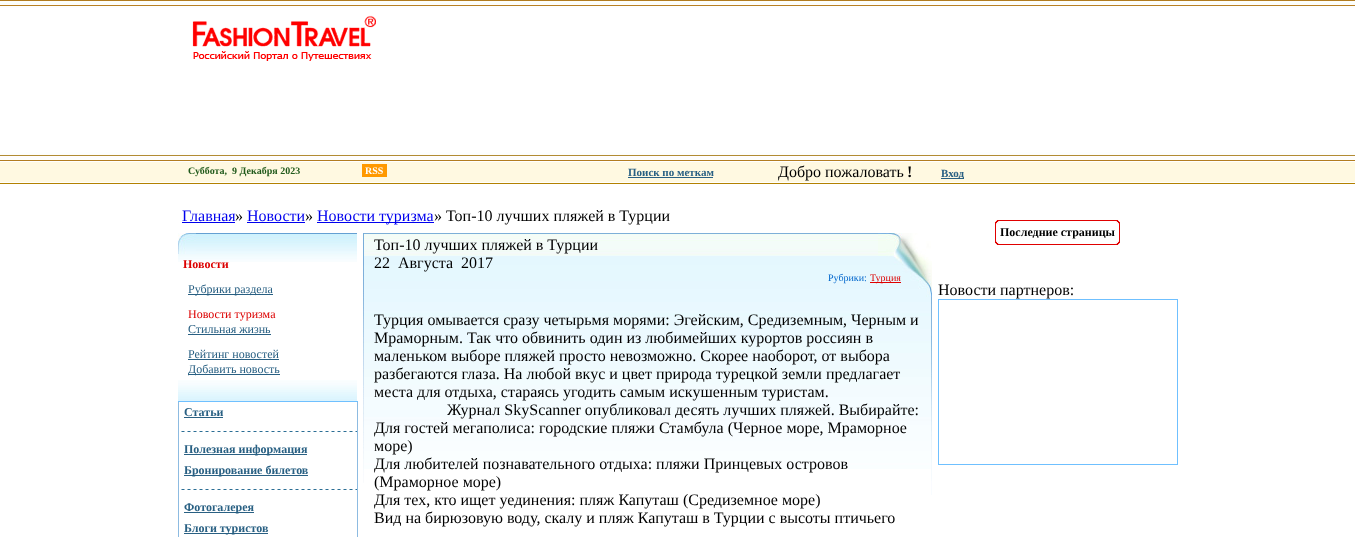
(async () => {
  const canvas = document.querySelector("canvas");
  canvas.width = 1355;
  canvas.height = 537;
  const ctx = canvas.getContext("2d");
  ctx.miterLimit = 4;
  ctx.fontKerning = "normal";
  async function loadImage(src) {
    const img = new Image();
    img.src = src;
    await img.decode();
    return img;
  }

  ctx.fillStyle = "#ffffff";
  ctx.fillRect(0, 0, 1355, 537);
  ctx.drawImage(await loadImage("img/1.png"), 0, 0, 177, 161);
  ctx.drawImage(await loadImage("img/2.png"), 177, 0, 1001, 161);
  ctx.drawImage(await loadImage("img/3.png"), 192, 15, 184, 46);
  ctx.drawImage(await loadImage("img/1.png"), 1178, 0, 177, 161);
  for (const [x, y, w, h, color] of [
    [0, 162, 1355, 20, "#fff9e1"],
    [362, 164, 25, 13, "#ff9900"],
    [628, 177, 85, 1, "#296083"],
    [941, 178, 23, 1, "#296083"],
    [0, 183, 1355, 1, "#b38200"],
    [182, 222, 53, 1, "#0000ee"],
    [247, 222, 58, 1, "#0000ee"],
    [317, 222, 117, 1, "#0000ee"],
    [357, 401, 1, 136, "#8dbbe1"],
    [178, 401, 1, 136, "#8dbbe1"],
    [178, 401, 180, 1, "#6fc0ff"],
  ]) {
    ctx.fillStyle = color;
    ctx.fillRect(x, y, w, h);
  }
  ctx.drawImage(await loadImage("img/4.png"), 178, 233, 179, 29);
  ctx.drawImage(await loadImage("img/5.png"), 178, 380, 179, 21);
  ctx.drawImage(await loadImage("img/6.png"), 178, 233, 18, 21);
  for (const [x, y, w, h, color] of [
    [188, 294, 85, 1, "#296083"],
    [188, 334, 83, 1, "#296083"],
    [188, 359, 91, 1, "#296083"],
    [188, 374, 92, 1, "#296083"],
    [184, 417, 39, 1, "#296083"],
  ]) {
    ctx.fillStyle = color;
    ctx.fillRect(x, y, w, h);
  }
  ctx.drawImage(await loadImage("img/7.png"), 181, 431, 176, 1);
  ctx.fillRect(184, 454, 123, 1);
  ctx.fillRect(184, 475, 124, 1);
  ctx.drawImage(await loadImage("img/7.png"), 181, 489, 176, 1);
  ctx.fillRect(184, 512, 70, 1);
  ctx.fillRect(184, 533, 84, 1);
  ctx.drawImage(await loadImage("img/8.png"), 363, 233, 1, 250);
  ctx.drawImage(await loadImage("img/9.png"), 364, 233, 567, 236);
  ctx.drawImage(await loadImage("img/10.png"), 878, 233, 53, 64);
  ctx.fillStyle = "#e00000";
  ctx.fillRect(870, 282, 31, 1);
  ctx.drawImage(await loadImage("img/11.png"), 931, 261, 1, 234);
  ctx.drawImage(await loadImage("img/12.png"), 995, 220, 5, 5);
  ctx.fillRect(1000, 220, 115, 1);
  ctx.drawImage(await loadImage("img/13.png"), 1115, 220, 5, 5);
  ctx.fillRect(995, 225, 1, 15);
  ctx.fillRect(1119, 225, 1, 15);
  ctx.drawImage(await loadImage("img/14.png"), 995, 240, 5, 5);
  ctx.fillRect(1000, 244, 115, 1);
  ctx.drawImage(await loadImage("img/15.png"), 1115, 240, 5, 5);
  ctx.strokeStyle = "#6fc0ff";
  ctx.strokeRect(938.5, 299.5, 239, 165);
  ctx.font = "bold 10px Liberation Serif";
  ctx.fillStyle = "#215a1b";
  ctx.fillText("Суббота,  9 Декабря 2023", 188, 174);
  ctx.fillStyle = "#ffffff";
  ctx.fillText("RSS", 365, 174);
  ctx.font = "bold 11px Liberation Serif";
  ctx.fillStyle = "#296083";
  ctx.fillText("Поиск по меткам", 628, 176);
  ctx.font = "16px Liberation Serif";
  ctx.fillStyle = "#000000";
  ctx.fillText("Добро пожаловать", 778, 177);
  ctx.font = "bold 16px Liberation Serif";
  ctx.fillText("!", 907, 177);
  ctx.font = "bold 11px Liberation Serif";
  ctx.fillStyle = "#296083";
  ctx.fillText("Вход", 941, 177);
  ctx.font = "16px Liberation Serif";
  ctx.fillStyle = "#0000ee";
  ctx.fillText("Главная", 182, 221);
  ctx.fillStyle = "#000000";
  ctx.fillText("»", 235, 221);
  ctx.fillStyle = "#0000ee";
  ctx.fillText("Новости", 247, 221);
  ctx.fillStyle = "#000000";
  ctx.fillText("»", 305, 221);
  ctx.fillStyle = "#0000ee";
  ctx.fillText("Новости туризма", 317, 221);
  ctx.fillStyle = "#000000";
  ctx.fillText("» Топ-10 лучших пляжей в Турции", 434, 221);
  ctx.font = "bold 12px Liberation Serif";
  ctx.fillStyle = "#dc0000";
  ctx.fillText("Новости", 183, 268);
  ctx.font = "12px Liberation Serif";
  ctx.fillStyle = "#296083";
  ctx.fillText("Рубрики раздела", 188, 293);
  ctx.fillStyle = "#dc0000";
  ctx.fillText("Новости туризма", 188, 318);
  ctx.fillStyle = "#296083";
  for (const [text, x, y] of [
    ["Стильная жизнь", 188, 333],
    ["Рейтинг новостей", 188, 358],
    ["Добавить новость", 188, 373],
  ]) {
    ctx.fillText(text, x, y);
  }
  ctx.font = "bold 12px Liberation Serif";
  for (const [text, x, y] of [
    ["Статьи", 184, 416],
    ["Полезная информация", 184, 453],
    ["Бронирование билетов", 184, 474],
    ["Фотогалерея", 184, 511],
    ["Блоги туристов", 184, 532],
  ]) {
    ctx.fillText(text, x, y);
  }
  ctx.font = "16px Liberation Serif";
  ctx.fillStyle = "#000000";
  for (const [text, x, y] of [
    ["Топ-10 лучших пляжей в Турции", 374, 250],
    ["22", 374, 268],
    ["Августа", 398, 268],
    ["2017", 461, 268],
  ]) {
    ctx.fillText(text, x, y);
  }
  ctx.font = "10px Liberation Serif";
  ctx.fillStyle = "#0066cc";
  ctx.fillText("Рубрики:", 828, 281);
  ctx.fillStyle = "#dc0000";
  ctx.fillText("Турция", 870, 281);
  ctx.font = "16px Liberation Serif";
  ctx.fillStyle = "#000000";
  for (const [text, x, y] of [
    ["Турция омывается сразу четырьмя морями: Эгейским, Средиземным, Черным и", 374, 325],
    ["Мраморным. Так что обвинить один из любимейших курортов россиян в", 374, 343],
    ["маленьком выборе пляжей просто невозможно. Скорее наоборот, от выбора", 374, 361],
    ["разбегаются глаза. На любой вкус и цвет природа турецкой земли предлагает", 374, 379],
    ["места для отдыха, стараясь угодить самым искушенным туристам.", 374, 397],
    ["Журнал SkyScanner опубликовал десять лучших пляжей. Выбирайте:", 447, 415],
    ["Для гостей мегаполиса: городские пляжи Стамбула (Черное море, Мраморное", 374, 433],
    ["море)", 374, 451],
    ["Для любителей познавательного отдыха: пляжи Принцевых островов", 374, 469],
    ["(Мраморное море)", 374, 487],
    ["Для тех, кто ищет уединения: пляж Капуташ (Средиземное море)", 374, 505],
    ["Вид на бирюзовую воду, скалу и пляж Капуташ в Турции с высоты птичьего", 374, 523],
  ]) {
    ctx.fillText(text, x, y);
  }
  ctx.font = "bold 12px Liberation Serif";
  ctx.fillText("Последние страницы", 1000, 236);
  ctx.font = "16px Liberation Serif";
  ctx.fillText("Новости партнеров:", 938, 295);
})();
